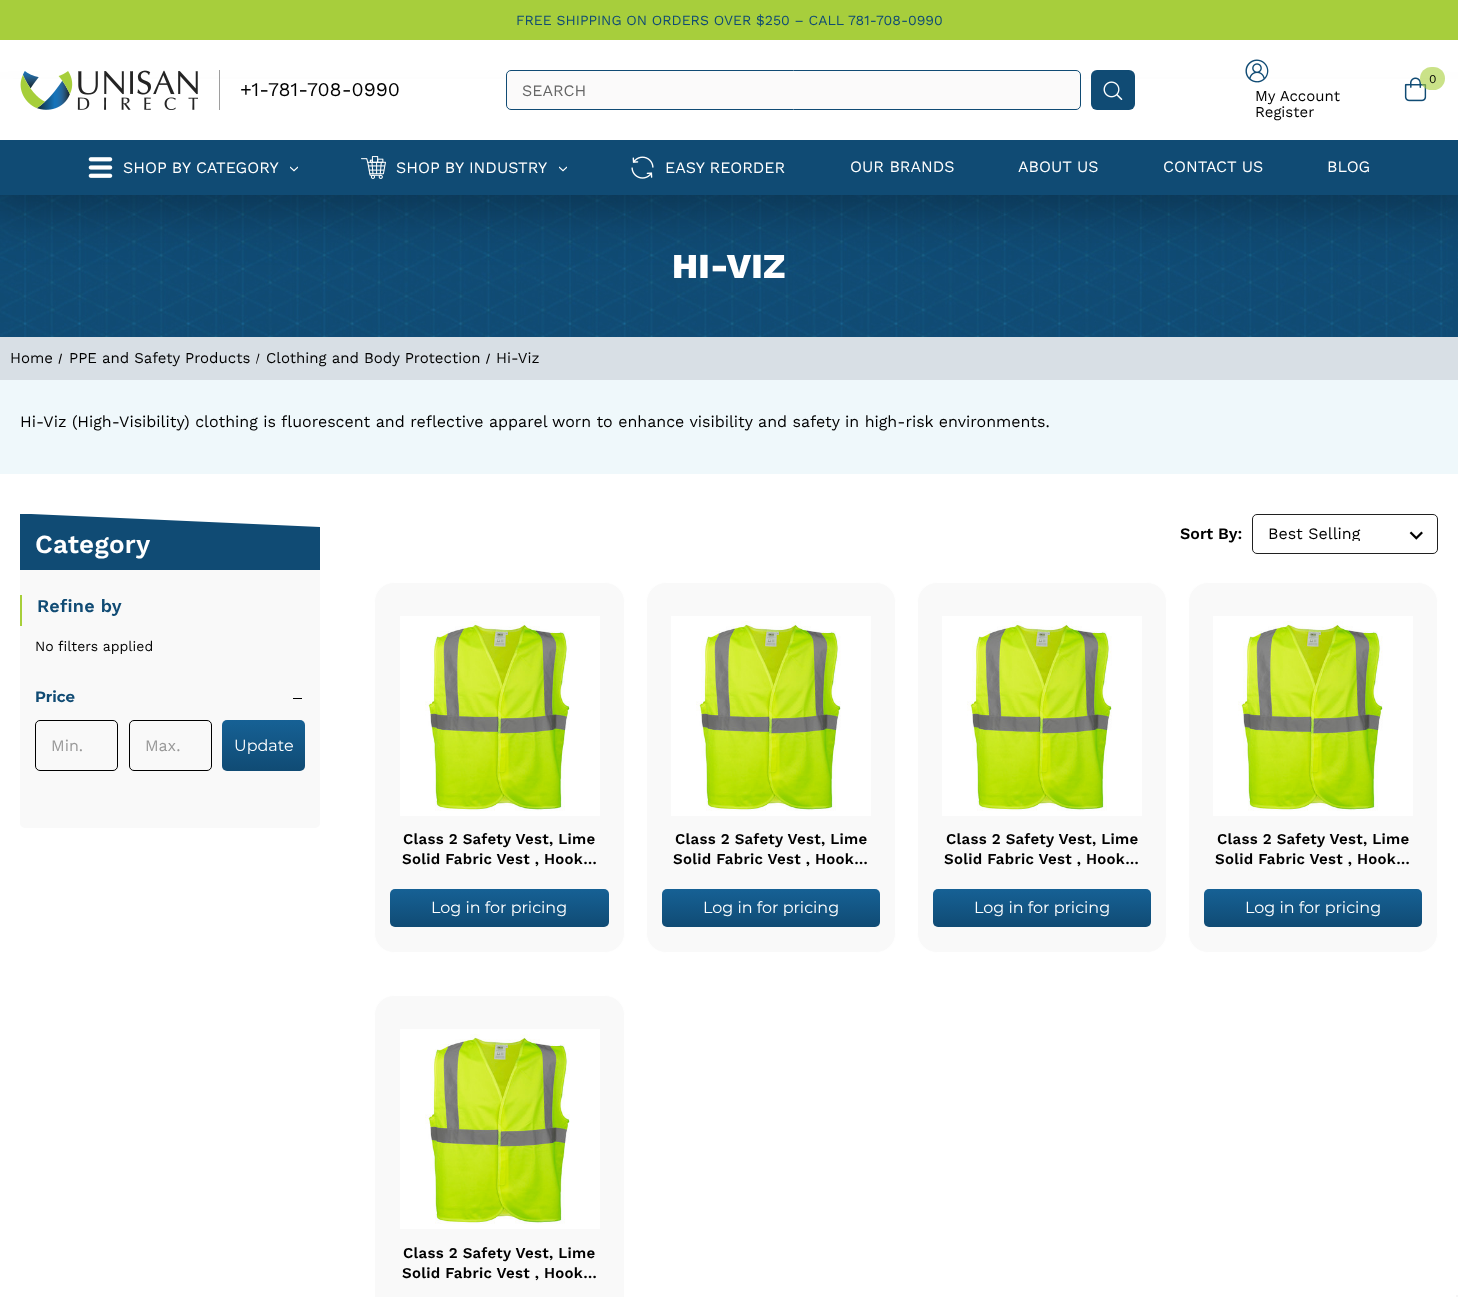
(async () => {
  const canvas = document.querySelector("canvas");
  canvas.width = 1458;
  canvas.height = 1297;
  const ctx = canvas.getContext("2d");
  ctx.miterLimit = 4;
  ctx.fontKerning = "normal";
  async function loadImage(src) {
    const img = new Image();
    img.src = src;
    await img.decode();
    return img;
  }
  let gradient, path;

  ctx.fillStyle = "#ffffff";
  ctx.fillRect(0, 0, 1458, 1297);
  ctx.drawImage(await loadImage("img/9.png"), 0, 195, 1458, 142);
  ctx.fillStyle = "rgba(0, 0, 0, 0.3)";
  ctx.filter = "blur(25px)";
  ctx.beginPath();
  ctx.rect(-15, 125, 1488, 85);
  ctx.fill();
  ctx.filter = "none";
  for (const [x, y, w, h, color] of [
    [0, 79, 1458, 61, "#ffffff"],
    [0, 0, 1458, 40, "#a7ce3c"],
    [219, 70, 1, 40, "#9e9e9e"],
  ]) {
    ctx.fillStyle = color;
    ctx.fillRect(x, y, w, h);
  }
  ctx.drawImage(await loadImage("img/1.png"), 20, 70, 178, 40);
  ctx.fillStyle = "#fbfafa";
  ctx.beginPath();
  ctx.roundRect(506.5, 70.5, 574, 39, 4.5);
  ctx.fill();
  ctx.strokeStyle = "#104b74";
  ctx.stroke();
  ctx.fillStyle = "#104b74";
  ctx.beginPath();
  ctx.roundRect(1091, 70, 44, 40, 6);
  ctx.fill();
  ctx.drawImage(await loadImage("img/2.png"), 1103, 81, 20, 19);
  ctx.drawImage(await loadImage("img/3.png"), 1404, 77, 23, 25);
  ctx.fillStyle = "rgba(167, 207, 57, 0.6)";
  ctx.beginPath();
  ctx.roundRect(1420, 67, 25, 23, 11.5);
  ctx.fill();
  ctx.drawImage(await loadImage("img/4.png"), 1245, 59, 24, 24);
  ctx.fillStyle = "#104b74";
  ctx.fillRect(0, 140, 1458, 55);
  ctx.drawImage(await loadImage("img/5.png"), 88, 157, 25, 21);
  ctx.drawImage(await loadImage("img/6.png"), 290, 166, 8, 6);
  ctx.drawImage(await loadImage("img/7.png"), 361, 156, 25, 23);
  ctx.drawImage(await loadImage("img/6.png"), 559, 166, 8, 6);
  ctx.drawImage(await loadImage("img/8.png"), 631, 156, 23, 23);
  ctx.fillStyle = "#d8dfe5";
  ctx.fillRect(0, 337, 1458, 43);
  ctx.fillStyle = "#000000";
  path = new Path2D("M61 353.5L62 354L59.5 364L58.5 363.5Z");
  ctx.fill(path);
  path = new Path2D("M258.5 353.5L259.5 354L256.5 364L256 363.5Z");
  ctx.fill(path);
  path = new Path2D("M489 353.5L490 354L487 364L486 363.5Z");
  ctx.fill(path);
  ctx.fillStyle = "#eff8fb";
  ctx.fillRect(0, 380, 1458, 94);
  ctx.fillStyle = "#104b74";
  path = new Path2D("M20 514V572L320 585V527L31 514Z");
  ctx.fill(path);
  ctx.fillStyle = "#f9f9f9";
  ctx.beginPath();
  ctx.roundRect(20, 570, 300, 258, [0, 0, 5, 5]);
  ctx.fill();
  ctx.fillStyle = "#a7cf3a";
  ctx.fillRect(20, 595, 2, 31);
  ctx.fillStyle = "#000000";
  ctx.fillRect(293, 698, 9, 1);
  ctx.beginPath();
  ctx.roundRect(35.5, 720.5, 82, 50, 4.5);
  ctx.strokeStyle = "#000000";
  ctx.stroke();
  ctx.beginPath();
  ctx.roundRect(129.5, 720.5, 82, 50, 4.5);
  ctx.stroke();
  gradient = ctx.createLinearGradient(264, 771, 264, 720);
  gradient.addColorStop(0, "#104b74");
  gradient.addColorStop(1, "#166195");
  ctx.fillStyle = gradient;
  ctx.beginPath();
  ctx.roundRect(222, 720, 83, 51, 5);
  ctx.fill();
  ctx.drawImage(await loadImage("img/10.png"), 1409, 531, 14, 9);
  ctx.beginPath();
  ctx.roundRect(1252.5, 514.5, 185, 39, 4.5);
  ctx.strokeStyle = "#202020";
  ctx.stroke();
  ctx.fillStyle = "#f9f9f9";
  ctx.beginPath();
  ctx.roundRect(374.5, 582.5, 250, 370, 19.5);
  ctx.fill();
  ctx.strokeStyle = "#ffffff";
  ctx.stroke();
  ctx.drawImage(await loadImage("img/11.png"), 400, 616, 200, 200);
  gradient = ctx.createLinearGradient(500, 927, 500, 889);
  gradient.addColorStop(0, "#104b74");
  gradient.addColorStop(1, "#166195");
  ctx.fillStyle = gradient;
  ctx.beginPath();
  ctx.roundRect(390, 889, 219, 38, 5);
  ctx.fill();
  ctx.fillStyle = "#f9f9f9";
  ctx.beginPath();
  ctx.roundRect(646.5, 582.5, 249, 370, 19.5);
  ctx.fill();
  ctx.stroke();
  ctx.drawImage(await loadImage("img/11.png"), 671, 616, 200, 200);
  gradient = ctx.createLinearGradient(771, 927, 771, 889);
  gradient.addColorStop(0, "#104b74");
  gradient.addColorStop(1, "#166195");
  ctx.fillStyle = gradient;
  ctx.beginPath();
  ctx.roundRect(662, 889, 218, 38, 5);
  ctx.fill();
  ctx.fillStyle = "#f9f9f9";
  ctx.beginPath();
  ctx.roundRect(917.5, 582.5, 249, 370, 19.5);
  ctx.fill();
  ctx.stroke();
  ctx.drawImage(await loadImage("img/11.png"), 942, 616, 200, 200);
  gradient = ctx.createLinearGradient(1042, 927, 1042, 889);
  gradient.addColorStop(0, "#104b74");
  gradient.addColorStop(1, "#166195");
  ctx.fillStyle = gradient;
  ctx.beginPath();
  ctx.roundRect(933, 889, 218, 38, 5);
  ctx.fill();
  ctx.fillStyle = "#f9f9f9";
  ctx.beginPath();
  ctx.roundRect(1188.5, 582.5, 249, 370, 19.5);
  ctx.fill();
  ctx.stroke();
  ctx.drawImage(await loadImage("img/11.png"), 1213, 616, 200, 200);
  gradient = ctx.createLinearGradient(1313, 927, 1313, 889);
  gradient.addColorStop(0, "#104b74");
  gradient.addColorStop(1, "#166195");
  ctx.fillStyle = gradient;
  ctx.beginPath();
  ctx.roundRect(1204, 889, 218, 38, 5);
  ctx.fill();
  ctx.fillStyle = "#f9f9f9";
  ctx.beginPath();
  ctx.roundRect(374.5, 995.5, 250, 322, 19.5);
  ctx.fill();
  ctx.stroke();
  ctx.drawImage(await loadImage("img/11.png"), 400, 1029, 200, 200);
  ctx.fillStyle = "#f5f5f5";
  ctx.fillRect(1456, 1295, 2, 2);
  ctx.font = "14px Work Sans";
  ctx.fillStyle = "#104b74";
  ctx.fillText("FREE SHIPPING ON ORDERS OVER $250 – CALL 781-708-0990", 516, 25);
  ctx.font = "19.5px Work Sans";
  ctx.fillStyle = "#000000";
  ctx.fillText("+1-781-708-0990", 240, 96);
  ctx.font = "16px Work Sans";
  ctx.fillStyle = "#666666";
  ctx.fillText("SEARCH", 522, 96);
  ctx.font = "12px Work Sans";
  ctx.fillStyle = "#000000";
  ctx.fillText("0", 1429, 83);
  ctx.font = "15px Work Sans";
  ctx.fillText("My Account", 1255, 101);
  ctx.fillText("Register", 1255, 117);
  ctx.font = "16px Work Sans";
  ctx.fillStyle = "#ffffff";
  for (const [text, x, y] of [
    ["SHOP BY CATEGORY", 123, 173],
    ["SHOP BY INDUSTRY", 396, 173],
    ["EASY REORDER", 665, 173],
    ["OUR BRANDS", 850, 172],
    ["ABOUT US", 1018, 172],
    ["CONTACT US", 1163, 172],
    ["BLOG", 1327, 172],
  ]) {
    ctx.fillText(text, x, y);
  }
  ctx.letterSpacing = "0.25px";
  ctx.font = "800 35px Work Sans";
  ctx.fillText("HI-VIZ", 672, 278);
  ctx.letterSpacing = "0px";
  ctx.font = "15px Work Sans";
  ctx.fillStyle = "#000000";
  for (const [text, x, y] of [
    ["Home", 10, 363],
    ["PPE and Safety Products", 69, 363],
    ["Clothing and Body Protection", 266, 363],
    ["Hi-Viz", 496, 363],
  ]) {
    ctx.fillText(text, x, y);
  }
  ctx.font = "16px Work Sans";
  ctx.fillText("Hi-Viz (High-Visibility) clothing is fluorescent and reflective apparel worn to enhance visibility and safety in high-risk environments.", 20, 427);
  ctx.letterSpacing = "0.25px";
  ctx.font = "600 26px Work Sans";
  ctx.fillStyle = "#ffffff";
  ctx.fillText("Category", 35, 553);
  ctx.font = "600 18px Work Sans";
  ctx.fillStyle = "#104b74";
  ctx.fillText("Refine by", 37, 612);
  ctx.letterSpacing = "0px";
  ctx.font = "14px Work Sans";
  ctx.fillStyle = "#000000";
  ctx.fillText("No filters applied", 35, 651);
  ctx.font = "bold 15px Montserrat";
  ctx.fillStyle = "#104b74";
  ctx.fillText("Price", 35, 702);
  ctx.font = "16px Work Sans";
  ctx.fillStyle = "#999999";
  ctx.fillText("Min.", 51, 751);
  ctx.fillText("Max.", 145, 751);
  ctx.font = "16px Montserrat";
  ctx.fillStyle = "#ffffff";
  ctx.fillText("Update", 234, 751);
  ctx.font = "600 16px Work Sans";
  ctx.fillStyle = "#000000";
  ctx.fillText("Sort By:", 1180, 539);
  ctx.save();
  ctx.beginPath();
  ctx.rect(1268, 527, 139, 14);
  ctx.clip();
  ctx.font = "16px Work Sans";
  ctx.fillText("Best Selling", 1268, 539);
  ctx.restore();
  ctx.letterSpacing = "0.25px";
  ctx.font = "600 15px Work Sans";
  ctx.fillText("Class 2 Safety Vest, Lime", 403, 844);
  ctx.fillText("Solid Fabric Vest , Hook…", 402, 864);
  ctx.letterSpacing = "0px";
  ctx.font = "16px Montserrat";
  ctx.fillStyle = "#ffffff";
  ctx.fillText("Log in for pricing", 431, 913);
  ctx.letterSpacing = "0.25px";
  ctx.font = "600 15px Work Sans";
  ctx.fillStyle = "#000000";
  ctx.fillText("Class 2 Safety Vest, Lime", 675, 844);
  ctx.fillText("Solid Fabric Vest , Hook…", 673, 864);
  ctx.letterSpacing = "0px";
  ctx.font = "16px Montserrat";
  ctx.fillStyle = "#ffffff";
  ctx.fillText("Log in for pricing", 703, 913);
  ctx.letterSpacing = "0.25px";
  ctx.font = "600 15px Work Sans";
  ctx.fillStyle = "#000000";
  ctx.fillText("Class 2 Safety Vest, Lime", 946, 844);
  ctx.fillText("Solid Fabric Vest , Hook…", 944, 864);
  ctx.letterSpacing = "0px";
  ctx.font = "16px Montserrat";
  ctx.fillStyle = "#ffffff";
  ctx.fillText("Log in for pricing", 974, 913);
  ctx.letterSpacing = "0.25px";
  ctx.font = "600 15px Work Sans";
  ctx.fillStyle = "#000000";
  ctx.fillText("Class 2 Safety Vest, Lime", 1217, 844);
  ctx.fillText("Solid Fabric Vest , Hook…", 1215, 864);
  ctx.letterSpacing = "0px";
  ctx.font = "16px Montserrat";
  ctx.fillStyle = "#ffffff";
  ctx.fillText("Log in for pricing", 1245, 913);
  ctx.letterSpacing = "0.25px";
  ctx.font = "600 15px Work Sans";
  ctx.fillStyle = "#000000";
  ctx.fillText("Class 2 Safety Vest, Lime", 403, 1258);
  ctx.fillText("Solid Fabric Vest , Hook…", 402, 1278);
})();
